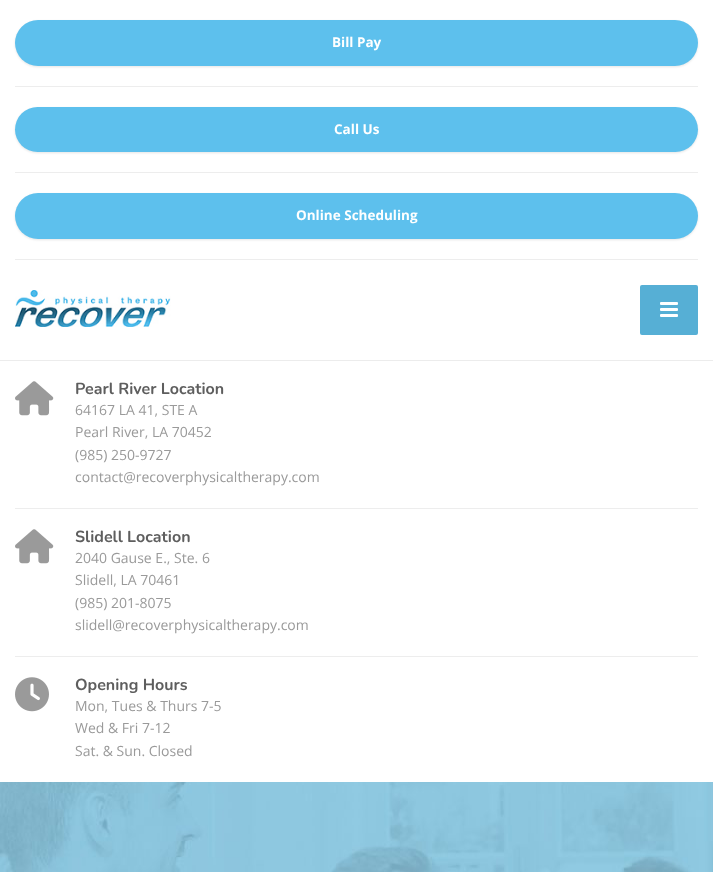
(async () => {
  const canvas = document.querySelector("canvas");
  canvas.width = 713;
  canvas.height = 872;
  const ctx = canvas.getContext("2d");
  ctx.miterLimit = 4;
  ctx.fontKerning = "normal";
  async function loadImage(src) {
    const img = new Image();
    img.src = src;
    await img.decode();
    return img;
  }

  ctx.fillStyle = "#ffffff";
  ctx.fillRect(0, 0, 713, 872);
  ctx.fillStyle = "#ececec";
  ctx.fillRect(0, 360, 713, 1);
  ctx.fillStyle = "#ededed";
  ctx.fillRect(15, 86, 683, 1);
  ctx.fillStyle = "rgba(0, 0, 0, 0.1)";
  ctx.filter = "blur(1px)";
  ctx.beginPath();
  ctx.roundRect(15, 21, 683, 46, 23);
  ctx.fill();
  ctx.filter = "none";
  ctx.fillStyle = "#5dc0ed";
  ctx.beginPath();
  ctx.roundRect(15, 20, 683, 46, 23);
  ctx.fill();
  ctx.fillStyle = "#ededed";
  ctx.fillRect(15, 172, 683, 1);
  ctx.fillStyle = "rgba(0, 0, 0, 0.1)";
  ctx.filter = "blur(1px)";
  ctx.beginPath();
  ctx.roundRect(15, 108, 683, 45, 22.5);
  ctx.fill();
  ctx.filter = "none";
  ctx.fillStyle = "#5dc0ed";
  ctx.beginPath();
  ctx.roundRect(15, 107, 683, 45, 22.5);
  ctx.fill();
  ctx.fillStyle = "#ededed";
  ctx.fillRect(15, 259, 683, 1);
  ctx.fillStyle = "rgba(0, 0, 0, 0.1)";
  ctx.filter = "blur(1px)";
  ctx.beginPath();
  ctx.roundRect(15, 194, 683, 46, 23);
  ctx.fill();
  ctx.filter = "none";
  ctx.fillStyle = "#5dc0ed";
  ctx.beginPath();
  ctx.roundRect(15, 193, 683, 46, 23);
  ctx.fill();
  ctx.drawImage(await loadImage("img/1.png"), 15, 290, 156, 37);
  ctx.fillStyle = "#56afd5";
  ctx.beginPath();
  ctx.roundRect(640, 285, 58, 50, 2);
  ctx.fill();
  ctx.fillStyle = "#ffffff";
  ctx.beginPath();
  ctx.roundRect(660, 302, 18, 3, 1);
  ctx.fill();
  ctx.beginPath();
  ctx.roundRect(660, 308, 18, 3, 1);
  ctx.fill();
  ctx.beginPath();
  ctx.roundRect(660, 314, 18, 3, 1);
  ctx.fill();
  ctx.fillStyle = "#ededed";
  ctx.fillRect(15, 508, 683, 1);
  ctx.drawImage(await loadImage("img/2.png"), 15, 381, 39, 35);
  ctx.fillRect(15, 656, 683, 1);
  ctx.drawImage(await loadImage("img/2.png"), 15, 529, 39, 35);
  ctx.drawImage(await loadImage("img/3.png"), 15, 677, 34, 35);
  ctx.drawImage(await loadImage("img/4.png"), 0, 782, 713, 90);
  ctx.font = "bold 13.5px Open Sans";
  ctx.fillStyle = "#ffffff";
  for (const [text, x, y] of [
    ["Bill Pay", 332, 47],
    ["Call Us", 334, 134],
    ["Online Scheduling", 296, 220],
  ]) {
    ctx.fillText(text, x, y);
  }
  ctx.font = "bold 16px Nunito";
  ctx.fillStyle = "#5e5e5e";
  ctx.fillText("Pearl River Location", 75, 394);
  ctx.font = "14px Open Sans";
  ctx.fillStyle = "#9a9a9a";
  for (const [text, x, y] of [
    ["64167 LA 41, STE A", 75, 415],
    ["Pearl River, LA 70452", 75, 437],
    ["(985) 250-9727", 75, 460],
    ["contact@recoverphysicaltherapy.com", 75, 482],
  ]) {
    ctx.fillText(text, x, y);
  }
  ctx.font = "bold 16px Nunito";
  ctx.fillStyle = "#5e5e5e";
  ctx.fillText("Slidell Location", 75, 542);
  ctx.font = "14px Open Sans";
  ctx.fillStyle = "#9a9a9a";
  for (const [text, x, y] of [
    ["2040 Gause E., Ste. 6", 75, 563],
    ["Slidell, LA 70461", 75, 585],
    ["(985) 201-8075", 75, 608],
    ["slidell@recoverphysicaltherapy.com", 75, 630],
  ]) {
    ctx.fillText(text, x, y);
  }
  ctx.font = "bold 16px Nunito";
  ctx.fillStyle = "#5e5e5e";
  ctx.fillText("Opening Hours", 75, 690);
  ctx.font = "14px Open Sans";
  ctx.fillStyle = "#9a9a9a";
  for (const [text, x, y] of [
    ["Mon, Tues & Thurs 7-5", 75, 711],
    ["Wed & Fri 7-12", 75, 733],
    ["Sat. & Sun. Closed", 75, 756],
  ]) {
    ctx.fillText(text, x, y);
  }
})();
